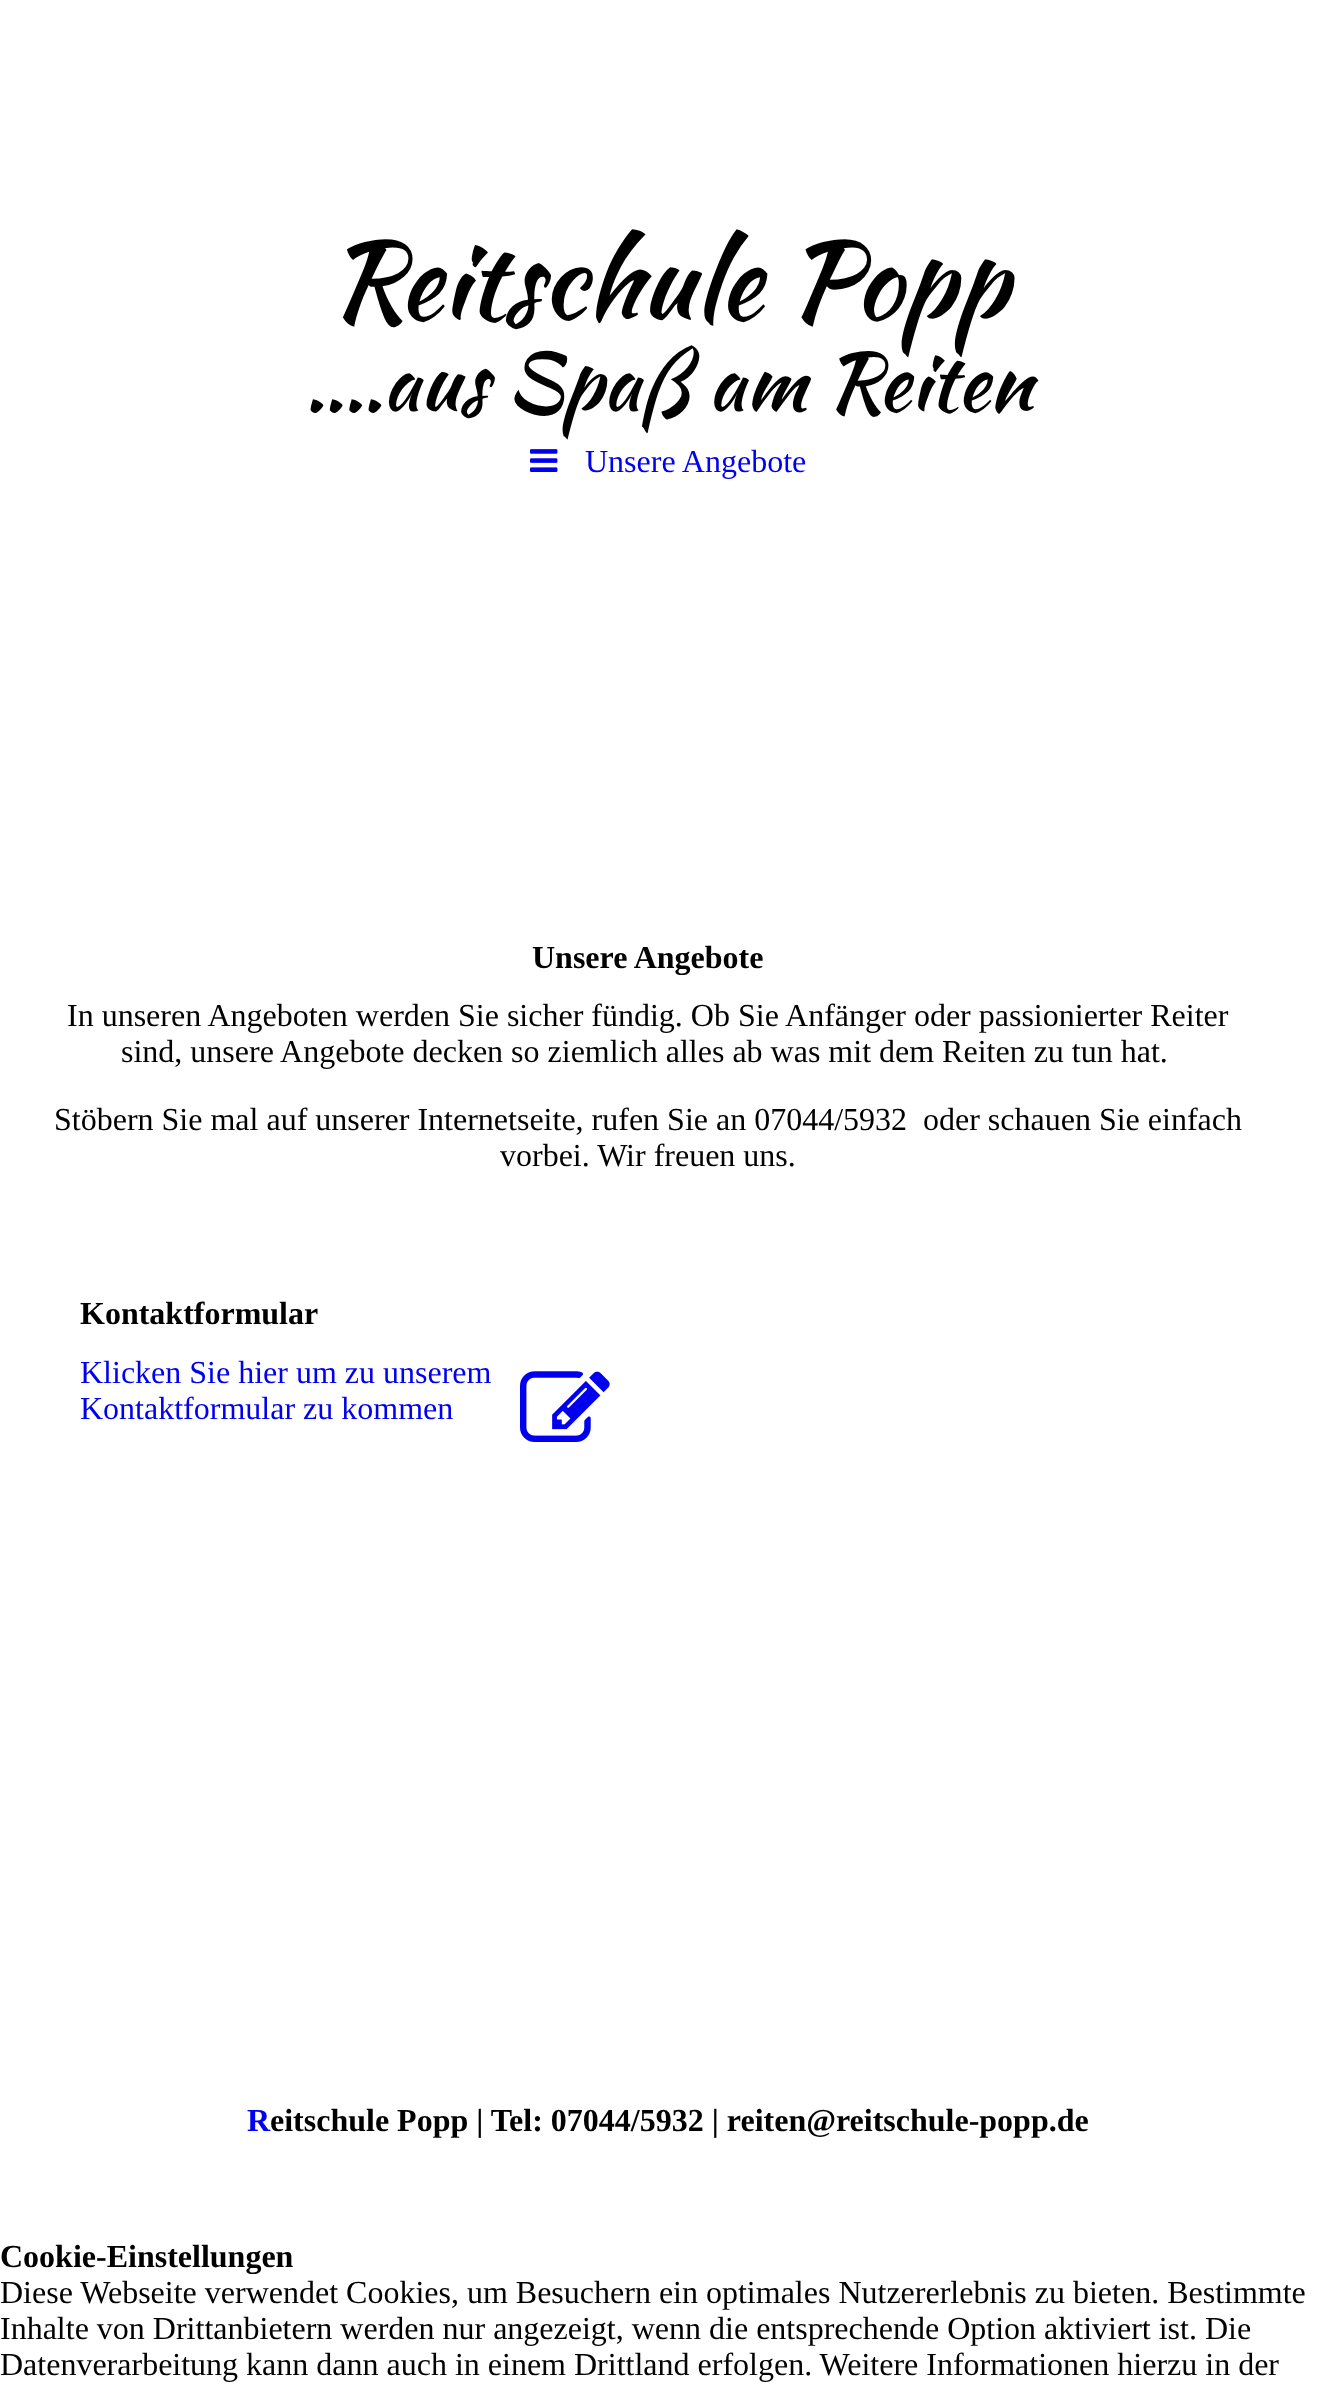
(async () => {
  const canvas = document.querySelector("canvas");
  canvas.width = 1335;
  canvas.height = 2393;
  const ctx = canvas.getContext("2d");
  ctx.miterLimit = 4;
  ctx.fontKerning = "normal";
  async function loadImage(src) {
    const img = new Image();
    img.src = src;
    await img.decode();
    return img;
  }

  ctx.fillStyle = "#ffffff";
  ctx.fillRect(0, 0, 1335, 2393);
  ctx.drawImage(await loadImage("img/1.png"), 530, 449, 28, 23);
  ctx.drawImage(await loadImage("img/2.png"), 520, 1371, 90, 71);
  ctx.font = "107px Kaushan Script";
  ctx.fillStyle = "#000000";
  ctx.fillText("Reitschule Popp", 329, 318);
  ctx.font = "80.25px Kaushan Script";
  ctx.fillText("....aus Spaß am Reiten", 305, 410);
  ctx.font = "32px Liberation Serif";
  ctx.fillStyle = "#0000ee";
  ctx.fillText("Unsere Angebote", 585, 472);
  ctx.font = "bold 32px Liberation Serif";
  ctx.fillStyle = "#000000";
  ctx.fillText("Unsere Angebote", 532, 968);
  ctx.font = "32px Liberation Serif";
  for (const [text, x, y] of [
    ["In unseren Angeboten werden Sie sicher fündig. Ob Sie Anfänger oder passionierter Reiter", 67, 1026],
    ["sind, unsere Angebote decken so ziemlich alles ab was mit dem Reiten zu tun hat.", 121, 1062],
    ["Stöbern Sie mal auf unserer Internetseite, rufen Sie an 07044/5932", 54, 1130],
    ["oder schauen Sie einfach", 923, 1130],
    ["vorbei. Wir freuen uns.", 500, 1166],
  ]) {
    ctx.fillText(text, x, y);
  }
  ctx.font = "bold 32px Liberation Serif";
  ctx.fillText("Kontaktformular", 80, 1324);
  ctx.font = "32px Liberation Serif";
  ctx.fillStyle = "#0000ee";
  ctx.fillText("Klicken Sie hier um zu unserem", 80, 1383);
  ctx.fillText("Kontaktformular zu kommen", 80, 1419);
  ctx.font = "bold 32px Liberation Serif";
  ctx.fillText("R", 247, 2131);
  ctx.fillStyle = "#000000";
  ctx.fillText("eitschule Popp | Tel: 07044/5932 | reiten@reitschule-popp.de", 270, 2131);
  ctx.fillText("Cookie-Einstellungen", 0, 2267);
  ctx.font = "32px Liberation Serif";
  for (const [text, x, y] of [
    ["Diese Webseite verwendet Cookies, um Besuchern ein optimales Nutzererlebnis zu bieten. Bestimmte", 0, 2303],
    ["Inhalte von Drittanbietern werden nur angezeigt, wenn die entsprechende Option aktiviert ist. Die", 0, 2339],
    ["Datenverarbeitung kann dann auch in einem Drittland erfolgen. Weitere Informationen hierzu in der", 0, 2375],
  ]) {
    ctx.fillText(text, x, y);
  }
})();
